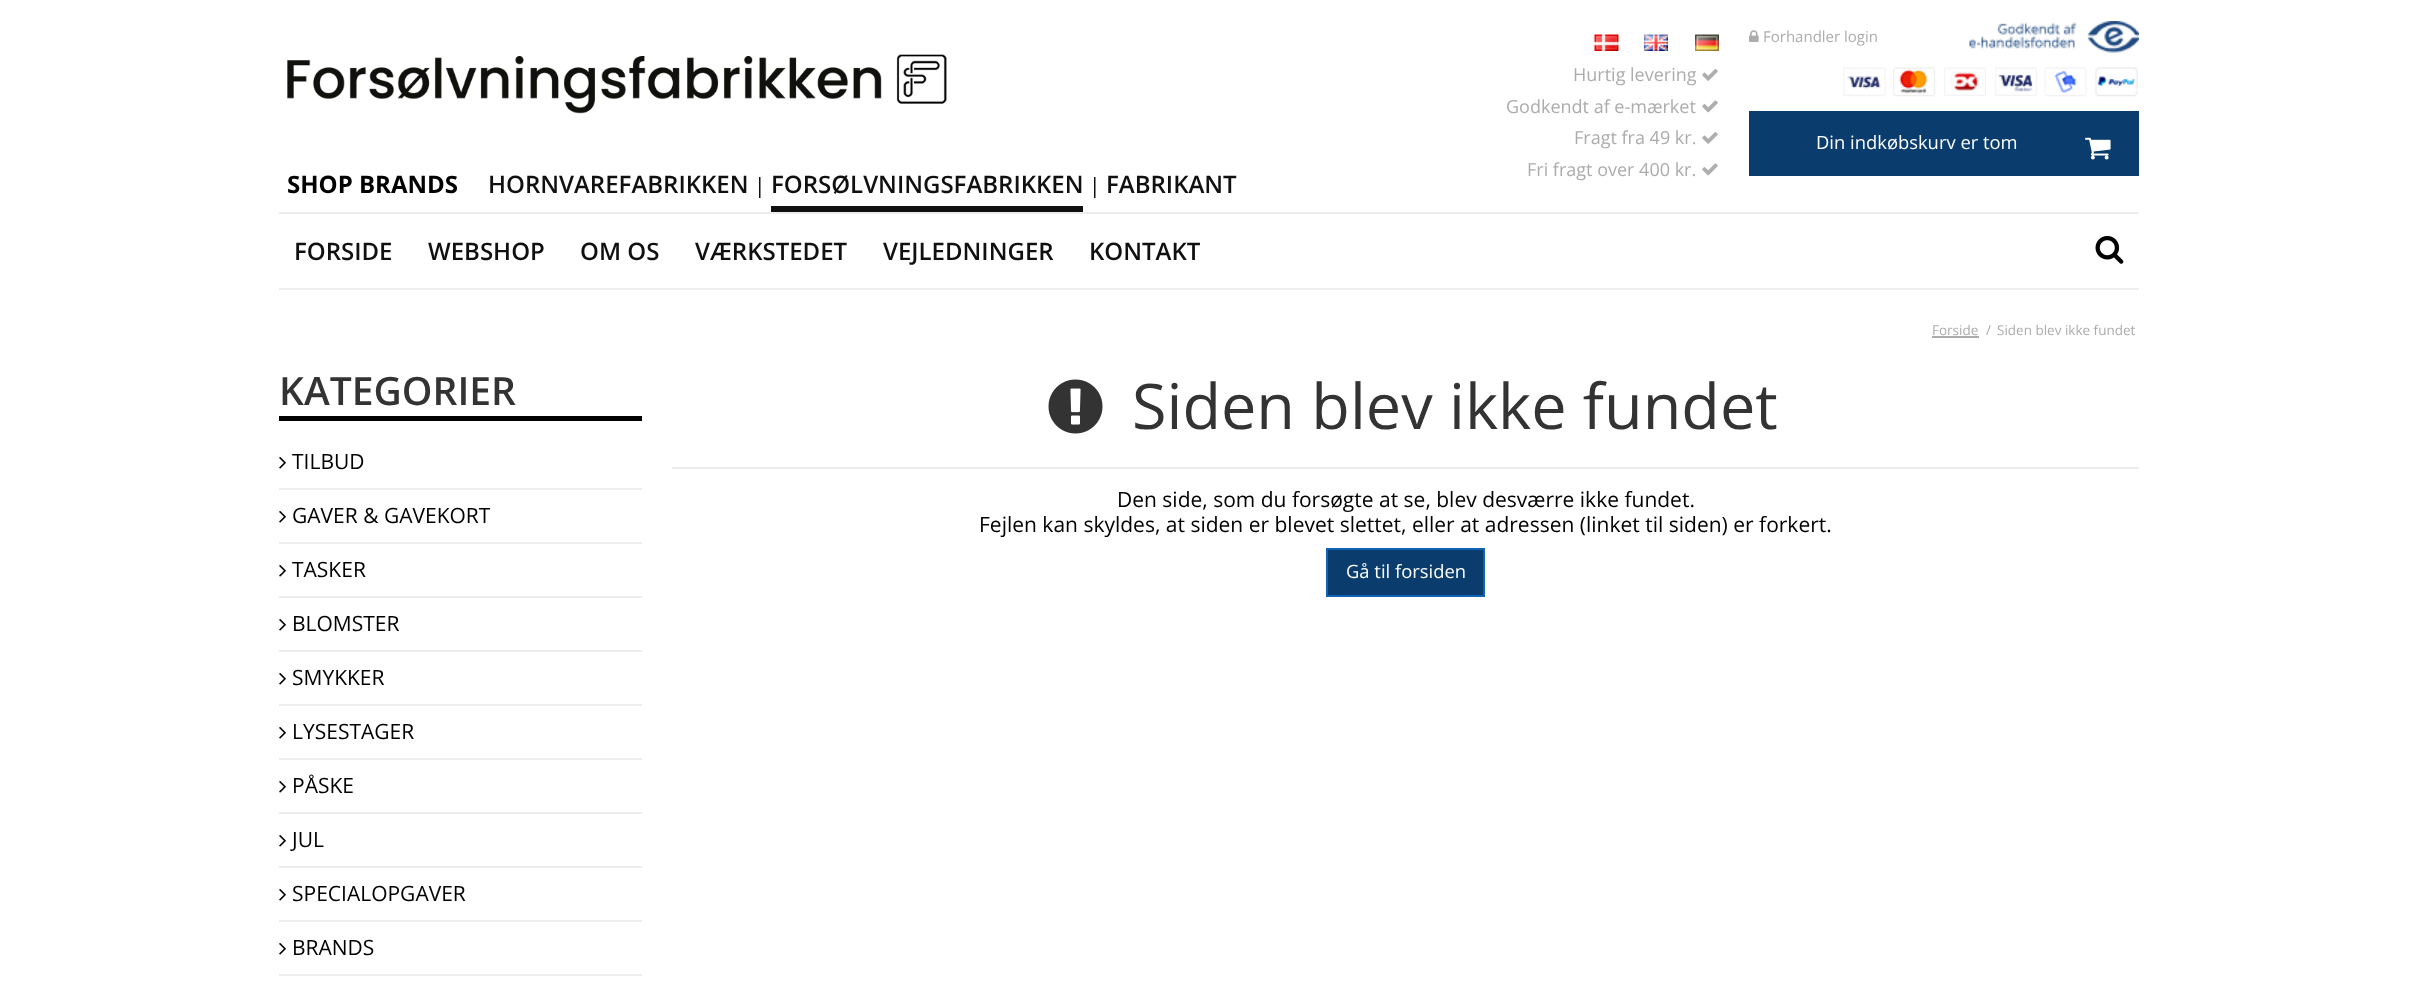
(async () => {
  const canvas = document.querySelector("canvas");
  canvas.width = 2418;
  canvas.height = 1005;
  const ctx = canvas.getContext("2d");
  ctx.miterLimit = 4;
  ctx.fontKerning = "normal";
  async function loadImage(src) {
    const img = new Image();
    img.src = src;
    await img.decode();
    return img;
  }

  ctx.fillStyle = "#ffffff";
  ctx.fillRect(0, 0, 2418, 1005);
  ctx.drawImage(await loadImage("img/1.png"), 1594, 34, 25, 17);
  ctx.drawImage(await loadImage("img/2.png"), 1644, 34, 24, 17);
  ctx.drawImage(await loadImage("img/3.png"), 1695, 34, 24, 17);
  ctx.drawImage(await loadImage("img/4.png"), 1749, 30, 10, 12);
  ctx.drawImage(await loadImage("img/5.png"), 1969, 21, 170, 32);
  ctx.drawImage(await loadImage("img/6.png"), 1702, 69, 16, 12);
  ctx.drawImage(await loadImage("img/7.png"), 1702, 100, 16, 13);
  ctx.drawImage(await loadImage("img/6.png"), 1702, 132, 16, 12);
  ctx.drawImage(await loadImage("img/7.png"), 1702, 163, 16, 13);
  ctx.drawImage(await loadImage("img/8.png"), 1843, 67, 43, 30);
  ctx.drawImage(await loadImage("img/9.png"), 1893, 67, 43, 30);
  ctx.drawImage(await loadImage("img/10.png"), 1944, 67, 42, 29);
  ctx.drawImage(await loadImage("img/11.png"), 1995, 67, 42, 29);
  ctx.drawImage(await loadImage("img/12.png"), 2044, 67, 43, 30);
  ctx.drawImage(await loadImage("img/13.png"), 2095, 67, 43, 30);
  ctx.fillStyle = "#0a3c6e";
  ctx.fillRect(1749, 111, 390, 65);
  ctx.drawImage(await loadImage("img/14.png"), 2085, 137, 26, 23);
  ctx.drawImage(await loadImage("img/15.png"), 287, 54, 660, 60);
  for (const [x, y, w, h, color] of [
    [771, 206, 312, 6, "#101010"],
    [279, 212, 1860, 2, "#ededed"],
    [279, 288, 1860, 2, "#ededed"],
  ]) {
    ctx.fillStyle = color;
    ctx.fillRect(x, y, w, h);
  }
  ctx.drawImage(await loadImage("img/16.png"), 2095, 235, 29, 29);
  for (const [x, y, w, h, color] of [
    [1932, 336, 47, 2, "#acacac"],
    [279, 416, 363, 5, "#000000"],
    [279, 488, 363, 2, "#ededed"],
  ]) {
    ctx.fillStyle = color;
    ctx.fillRect(x, y, w, h);
  }
  ctx.drawImage(await loadImage("img/17.png"), 279, 457, 7, 12);
  ctx.fillRect(279, 542, 363, 2);
  ctx.drawImage(await loadImage("img/17.png"), 279, 511, 7, 12);
  ctx.fillRect(279, 596, 363, 2);
  ctx.drawImage(await loadImage("img/17.png"), 279, 565, 7, 12);
  ctx.fillRect(279, 650, 363, 2);
  ctx.drawImage(await loadImage("img/17.png"), 279, 619, 7, 12);
  ctx.fillRect(279, 704, 363, 2);
  ctx.drawImage(await loadImage("img/17.png"), 279, 673, 7, 12);
  ctx.fillRect(279, 758, 363, 2);
  ctx.drawImage(await loadImage("img/17.png"), 279, 727, 7, 12);
  ctx.fillRect(279, 812, 363, 2);
  ctx.drawImage(await loadImage("img/17.png"), 279, 781, 7, 12);
  ctx.fillRect(279, 866, 363, 2);
  ctx.drawImage(await loadImage("img/17.png"), 279, 835, 7, 12);
  ctx.fillRect(279, 920, 363, 2);
  ctx.drawImage(await loadImage("img/17.png"), 279, 889, 7, 12);
  ctx.fillRect(279, 974, 363, 2);
  ctx.drawImage(await loadImage("img/17.png"), 279, 943, 7, 12);
  ctx.fillRect(672, 467, 1467, 2);
  ctx.drawImage(await loadImage("img/18.png"), 1048, 379, 55, 55);
  ctx.fillStyle = "#0a3c6e";
  ctx.beginPath();
  ctx.rect(1327, 549, 157, 47);
  ctx.fill();
  ctx.strokeStyle = "#1062b4";
  ctx.lineWidth = 2;
  ctx.stroke();
  ctx.font = "15px Open Sans";
  ctx.fillStyle = "#acacac";
  ctx.fillText("Forhandler login", 1763, 42);
  ctx.font = "18px Open Sans";
  for (const [text, x, y] of [
    ["Hurtig levering", 1573, 81],
    ["Godkendt af e-mærket", 1506, 113],
    ["Fragt fra 49 kr.", 1574, 144],
    ["Fri fragt over 400 kr.", 1527, 176],
  ]) {
    ctx.fillText(text, x, y);
  }
  ctx.font = "18.4px Open Sans";
  ctx.fillStyle = "#ffffff";
  ctx.fillText("Din indkøbskurv er tom", 1816, 149);
  ctx.font = "bold 24px Open Sans";
  ctx.fillStyle = "#000000";
  ctx.fillText("SHOP BRANDS", 287, 193);
  ctx.font = "600 24px Open Sans";
  ctx.fillStyle = "#101010";
  ctx.fillText("HORNVAREFABRIKKEN", 488, 193);
  ctx.font = "21px Open Sans";
  ctx.fillStyle = "#000000";
  ctx.fillText("|", 754, 193);
  ctx.font = "600 24px Open Sans";
  ctx.fillStyle = "#101010";
  ctx.fillText("FORSØLVNINGSFABRIKKEN", 771, 193);
  ctx.font = "21px Open Sans";
  ctx.fillStyle = "#000000";
  ctx.fillText("|", 1089, 193);
  ctx.font = "600 24px Open Sans";
  ctx.fillStyle = "#101010";
  for (const [text, x, y] of [
    ["FABRIKANT", 1106, 193],
    ["FORSIDE", 294, 260],
    ["WEBSHOP", 428, 260],
    ["OM OS", 580, 260],
    ["VÆRKSTEDET", 695, 260],
    ["VEJLEDNINGER", 883, 260],
    ["KONTAKT", 1089, 260],
  ]) {
    ctx.fillText(text, x, y);
  }
  ctx.font = "13.5px Open Sans";
  ctx.fillStyle = "#acacac";
  for (const [text, x, y] of [
    ["Forside", 1932, 335],
    ["/", 1986, 335],
    ["Siden blev ikke fundet", 1997, 335],
  ]) {
    ctx.fillText(text, x, y);
  }
  ctx.font = "600 39px Open Sans";
  ctx.fillStyle = "#333333";
  ctx.fillText("KATEGORIER", 279, 405);
  ctx.font = "21px Open Sans";
  ctx.fillStyle = "#000000";
  for (const [text, x, y] of [
    ["TILBUD", 292, 469],
    ["GAVER & GAVEKORT", 292, 523],
    ["TASKER", 292, 577],
    ["BLOMSTER", 292, 631],
    ["SMYKKER", 292, 685],
    ["LYSESTAGER", 292, 739],
    ["PÅSKE", 292, 793],
    ["JUL", 292, 847],
    ["SPECIALOPGAVER", 292, 901],
    ["BRANDS", 292, 955],
  ]) {
    ctx.fillText(text, x, y);
  }
  ctx.font = "63px Open Sans";
  ctx.fillStyle = "#333333";
  ctx.fillText("Siden blev ikke fundet", 1132, 429);
  ctx.font = "21px Open Sans";
  ctx.fillStyle = "#000000";
  ctx.fillText("Den side, som du forsøgte at se, blev desværre ikke fundet.", 1117, 507);
  ctx.fillText("Fejlen kan skyldes, at siden er blevet slettet, eller at adressen (linket til siden) er forkert.", 979, 532);
  ctx.font = "18.4px Open Sans";
  ctx.fillStyle = "#ffffff";
  ctx.fillText("Gå til forsiden", 1346, 578);
})();
